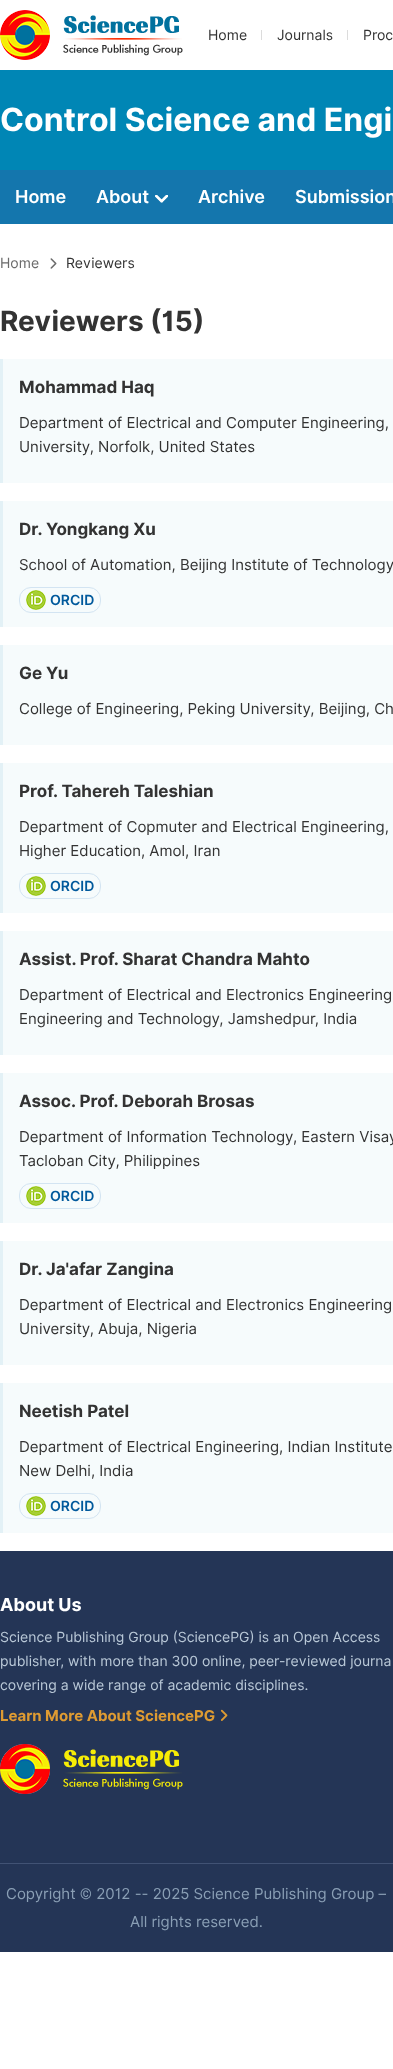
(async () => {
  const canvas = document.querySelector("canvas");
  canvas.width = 393;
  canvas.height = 2069;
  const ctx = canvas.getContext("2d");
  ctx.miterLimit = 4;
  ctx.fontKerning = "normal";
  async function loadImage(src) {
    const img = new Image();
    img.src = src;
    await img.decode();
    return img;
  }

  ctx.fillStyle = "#ffffff";
  ctx.fillRect(0, 0, 393, 2069);
  ctx.drawImage(await loadImage("img/1.png"), 0, 10, 183, 50);
  for (const [x, y, w, h, color] of [
    [261, 30, 1, 10, "#dcdcdc"],
    [347, 30, 1, 10, "#dcdcdc"],
    [0, 70, 393, 100, "#0086b5"],
    [0, 170, 393, 54, "#1476ad"],
  ]) {
    ctx.fillStyle = color;
    ctx.fillRect(x, y, w, h);
  }
  ctx.drawImage(await loadImage("img/2.png"), 155, 195, 13, 8);
  ctx.drawImage(await loadImage("img/3.png"), 50, 258, 7, 11);
  for (const [x, y, w, h, color] of [
    [3, 359, 390, 124, "#f6fbfc"],
    [0, 359, 3, 124, "#e3f1f6"],
    [3, 501, 390, 126, "#f6fbfc"],
    [0, 501, 3, 126, "#e3f1f6"],
  ]) {
    ctx.fillStyle = color;
    ctx.fillRect(x, y, w, h);
  }
  ctx.beginPath();
  ctx.roundRect(19.5, 587.5, 81, 25, 11.5);
  ctx.strokeStyle = "#d3e4f2";
  ctx.stroke();
  ctx.drawImage(await loadImage("img/4.png"), 26, 590, 20, 20);
  for (const [x, y, w, h, color] of [
    [3, 645, 390, 100, "#f6fbfc"],
    [0, 645, 3, 100, "#e3f1f6"],
    [3, 763, 390, 150, "#f6fbfc"],
    [0, 763, 3, 150, "#e3f1f6"],
  ]) {
    ctx.fillStyle = color;
    ctx.fillRect(x, y, w, h);
  }
  ctx.beginPath();
  ctx.roundRect(19.5, 873.5, 81, 25, 11.5);
  ctx.stroke();
  ctx.drawImage(await loadImage("img/4.png"), 26, 876, 20, 20);
  for (const [x, y, w, h, color] of [
    [3, 931, 390, 124, "#f6fbfc"],
    [0, 931, 3, 124, "#e3f1f6"],
    [3, 1073, 390, 150, "#f6fbfc"],
    [0, 1073, 3, 150, "#e3f1f6"],
  ]) {
    ctx.fillStyle = color;
    ctx.fillRect(x, y, w, h);
  }
  ctx.beginPath();
  ctx.roundRect(19.5, 1183.5, 81, 25, 11.5);
  ctx.stroke();
  ctx.drawImage(await loadImage("img/4.png"), 26, 1186, 20, 20);
  for (const [x, y, w, h, color] of [
    [3, 1241, 390, 124, "#f6fbfc"],
    [0, 1241, 3, 124, "#e3f1f6"],
    [3, 1383, 390, 150, "#f6fbfc"],
    [0, 1383, 3, 150, "#e3f1f6"],
  ]) {
    ctx.fillStyle = color;
    ctx.fillRect(x, y, w, h);
  }
  ctx.beginPath();
  ctx.roundRect(19.5, 1493.5, 81, 25, 11.5);
  ctx.stroke();
  ctx.drawImage(await loadImage("img/4.png"), 26, 1496, 20, 20);
  ctx.fillStyle = "#243556";
  ctx.fillRect(0, 1551, 393, 312);
  ctx.drawImage(await loadImage("img/5.png"), 220, 1709, 8, 12);
  ctx.drawImage(await loadImage("img/6.png"), 0, 1744, 183, 50);
  ctx.fillRect(0, 1864, 393, 88);
  ctx.fillStyle = "#415274";
  ctx.fillRect(0, 1863, 393, 1);
  ctx.font = "14px Inter";
  ctx.fillStyle = "#333333";
  for (const [text, x, y] of [
    ["Home", 208, 40],
    ["Journals", 277, 40],
    ["Proc", 363, 40],
  ]) {
    ctx.fillText(text, x, y);
  }
  ctx.font = "bold 32px Inter";
  ctx.fillStyle = "#ffffff";
  ctx.fillText("Control Science and Engi", 0, 131);
  ctx.font = "600 18px Inter";
  for (const [text, x, y] of [
    ["Home", 15, 203],
    ["About", 96, 203],
    ["Archive", 198, 203],
    ["Submission", 295, 203],
  ]) {
    ctx.fillText(text, x, y);
  }
  ctx.font = "14px Inter";
  ctx.fillStyle = "#6b6b6b";
  ctx.fillText("Home", 0, 268);
  ctx.fillStyle = "#333333";
  ctx.fillText("Reviewers", 66, 268);
  ctx.font = "bold 28px Inter";
  ctx.fillText("Reviewers (15)", 0, 331);
  ctx.font = "bold 17px Inter";
  ctx.fillText("Mohammad Haq", 19, 393);
  ctx.font = "15px Inter";
  ctx.fillText("Department of Electrical and Computer Engineering,", 19, 428);
  ctx.fillText("University, Norfolk, United States", 19, 452);
  ctx.font = "bold 17px Inter";
  ctx.fillText("Dr. Yongkang Xu", 19, 535);
  ctx.font = "15px Inter";
  ctx.fillText("School of Automation, Beijing Institute of Technology", 19, 570);
  ctx.font = "600 14px Inter";
  ctx.fillStyle = "#00599c";
  ctx.fillText("ORCID", 50, 605);
  ctx.font = "bold 17px Inter";
  ctx.fillStyle = "#333333";
  ctx.fillText("Ge Yu", 19, 679);
  ctx.font = "15px Inter";
  ctx.fillText("College of Engineering, Peking University, Beijing, Ch", 19, 714);
  ctx.font = "bold 17px Inter";
  ctx.fillText("Prof. Tahereh Taleshian", 19, 797);
  ctx.font = "15px Inter";
  ctx.fillText("Department of Copmuter and Electrical Engineering,", 19, 832);
  ctx.fillText("Higher Education, Amol, Iran", 19, 856);
  ctx.font = "600 14px Inter";
  ctx.fillStyle = "#00599c";
  ctx.fillText("ORCID", 50, 891);
  ctx.font = "bold 17px Inter";
  ctx.fillStyle = "#333333";
  ctx.fillText("Assist. Prof. Sharat Chandra Mahto", 19, 965);
  ctx.font = "15px Inter";
  ctx.fillText("Department of Electrical and Electronics Engineering", 19, 1000);
  ctx.fillText("Engineering and Technology, Jamshedpur, India", 19, 1024);
  ctx.font = "bold 17px Inter";
  ctx.fillText("Assoc. Prof. Deborah Brosas", 19, 1107);
  ctx.font = "15px Inter";
  ctx.fillText("Department of Information Technology, Eastern Visay", 19, 1142);
  ctx.fillText("Tacloban City, Philippines", 19, 1166);
  ctx.font = "600 14px Inter";
  ctx.fillStyle = "#00599c";
  ctx.fillText("ORCID", 50, 1201);
  ctx.font = "bold 17px Inter";
  ctx.fillStyle = "#333333";
  ctx.fillText("Dr. Ja'afar Zangina", 19, 1275);
  ctx.font = "15px Inter";
  ctx.fillText("Department of Electrical and Electronics Engineering", 19, 1310);
  ctx.fillText("University, Abuja, Nigeria", 19, 1334);
  ctx.font = "bold 17px Inter";
  ctx.fillText("Neetish Patel", 19, 1417);
  ctx.font = "15px Inter";
  ctx.fillText("Department of Electrical Engineering, Indian Institute", 19, 1452);
  ctx.fillText("New Delhi, India", 19, 1476);
  ctx.font = "600 14px Inter";
  ctx.fillStyle = "#00599c";
  ctx.fillText("ORCID", 50, 1511);
  ctx.font = "bold 18px Inter";
  ctx.fillStyle = "#ffffff";
  ctx.fillText("About Us", 0, 1611);
  ctx.font = "14px Inter";
  ctx.fillStyle = "#b9c8d7";
  for (const [text, x, y] of [
    ["Science Publishing Group (SciencePG) is an Open Access", 0, 1642],
    ["publisher, with more than 300 online, peer-reviewed journa", 0, 1666],
    ["covering a wide range of academic disciplines.", 0, 1690],
  ]) {
    ctx.fillText(text, x, y);
  }
  ctx.font = "bold 15px Inter";
  ctx.fillStyle = "#de9b32";
  ctx.fillText("Learn More About SciencePG", 0, 1721);
  ctx.font = "15px Inter";
  ctx.fillStyle = "#8a9fb5";
  ctx.fillText("Copyright © 2012 -- 2025 Science Publishing Group –", 6, 1899);
  ctx.fillText("All rights reserved.", 130, 1927);
})();
